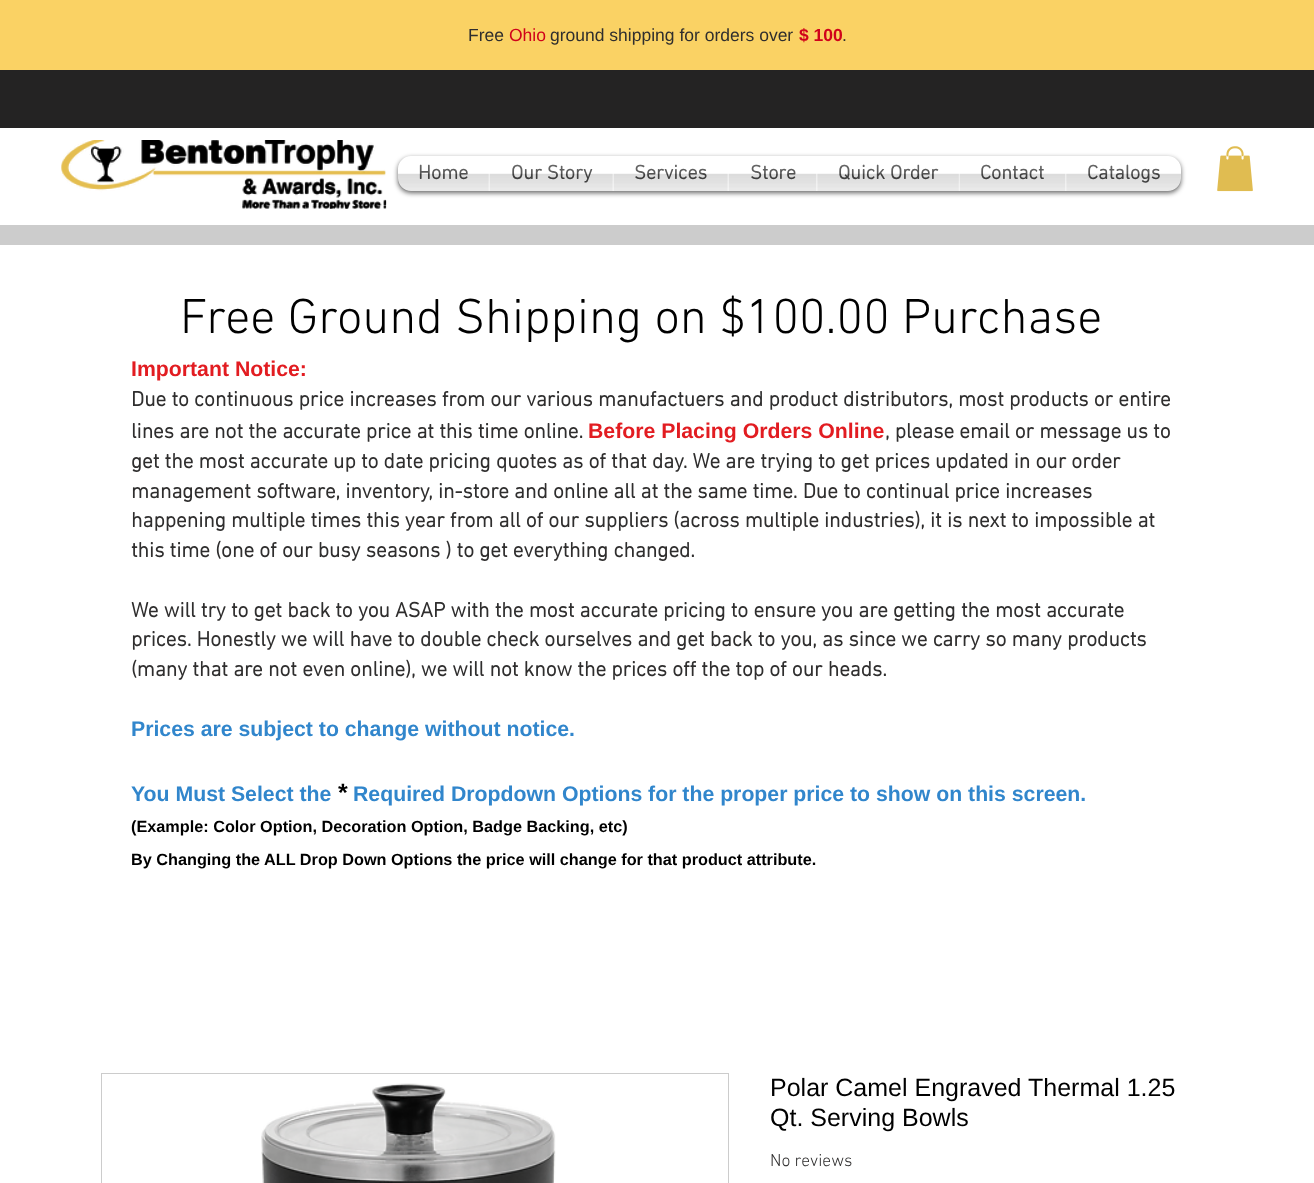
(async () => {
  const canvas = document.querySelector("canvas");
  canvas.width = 1314;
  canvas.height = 1183;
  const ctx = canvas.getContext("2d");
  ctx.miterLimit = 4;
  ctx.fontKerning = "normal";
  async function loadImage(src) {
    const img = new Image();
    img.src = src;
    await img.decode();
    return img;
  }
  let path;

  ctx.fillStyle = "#ffffff";
  ctx.fillRect(0, 0, 1314, 1183);
  ctx.fillStyle = "#fad264";
  ctx.fillRect(0, 0, 1314, 70);
  ctx.fillStyle = "#242323";
  ctx.fillRect(0, 70, 1314, 58);
  ctx.drawImage(await loadImage("img/2.png"), 61, 140, 326, 69);
  ctx.drawImage(await loadImage("img/1.png"), 61, 140, 326, 69);
  ctx.save();
  path = new Path2D("M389 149H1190V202H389ZM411 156H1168C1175 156 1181 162 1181 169V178C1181 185 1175 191 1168 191H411C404 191 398 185 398 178V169C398 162 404 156 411 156Z");
  ctx.clip(path, "evenodd");
  ctx.fillStyle = "rgba(0, 0, 0, 0.6)";
  ctx.filter = "blur(2.5px)";
  ctx.beginPath();
  ctx.roundRect(398, 158, 783, 35, 13);
  ctx.fill();
  ctx.filter = "none";
  ctx.restore();
  ctx.drawImage(await loadImage("img/3.png"), 398, 173, 783, 18);
  ctx.drawImage(await loadImage("img/11.png"), 1217, 146, 36, 46);
  ctx.fillStyle = "#cccccc";
  ctx.fillRect(0, 225, 1314, 20);
  ctx.strokeStyle = "#cccccc";
  ctx.strokeRect(101.5, 1073.5, 627, 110);
  ctx.drawImage(await loadImage("img/12.png"), 261, 1083, 295, 100);
  ctx.font = "17.5px Liberation Sans";
  ctx.fillStyle = "#2f2e2e";
  ctx.fillText("Free", 468, 41);
  ctx.fillStyle = "#d0021b";
  ctx.fillText("Ohio", 509, 41);
  ctx.fillStyle = "#2f2e2e";
  ctx.fillText("ground shipping for orders over", 550, 41);
  ctx.font = "bold 17.5px Liberation Sans";
  ctx.fillStyle = "#d0021b";
  ctx.fillText("$ 100", 799, 41);
  ctx.font = "17.5px Liberation Sans";
  ctx.fillStyle = "#2f2e2e";
  ctx.fillText(".", 842, 41);
  ctx.font = "bold 20px 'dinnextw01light'";
  ctx.fillStyle = "#444444";
  ctx.fillText("Home", 418, 179);
  ctx.drawImage(await loadImage("img/4.png"), 398, 165, 91, 26);
  ctx.fillText("Our Story", 511, 179);
  ctx.drawImage(await loadImage("img/5.png"), 490, 165, 123, 26);
  ctx.fillText("Services", 634, 179);
  ctx.drawImage(await loadImage("img/6.png"), 614, 165, 114, 26);
  ctx.fillText("Store", 750, 179);
  ctx.drawImage(await loadImage("img/7.png"), 729, 165, 87, 26);
  ctx.fillText("Quick Order", 838, 179);
  ctx.drawImage(await loadImage("img/8.png"), 817, 165, 142, 26);
  ctx.fillText("Contact", 980, 179);
  ctx.drawImage(await loadImage("img/9.png"), 960, 165, 105, 26);
  ctx.fillText("Catalogs", 1087, 179);
  ctx.drawImage(await loadImage("img/10.png"), 1066, 165, 115, 26);
  ctx.font = "300 50px 'dinnextw01light'";
  ctx.fillStyle = "#000000";
  ctx.fillText("Free Ground Shipping on $100.00 Purchase", 180, 333);
  ctx.font = "bold 21.25px Liberation Sans";
  ctx.fillStyle = "#e21c21";
  ctx.fillText("Important Notice:", 131, 376);
  ctx.font = "bold 21.25px 'dinnextw01light'";
  ctx.fillStyle = "#2f2e2e";
  ctx.fillText("Due to continuous price increases from our various manufactuers and product distributors, most products or entire", 131, 406);
  ctx.fillText("lines are not the accurate price at this time online.", 131, 438);
  ctx.font = "bold 21.25px Liberation Sans";
  ctx.fillStyle = "#e21c21";
  ctx.fillText("Before Placing Orders Online", 588, 438);
  ctx.font = "bold 21.25px 'dinnextw01light'";
  ctx.fillStyle = "#2f2e2e";
  for (const [text, x, y] of [
    [", please email or message us to", 885, 438],
    ["get the most accurate up to date pricing quotes as of that day. We are trying to get prices updated in our order", 131, 468],
    ["management software, inventory, in-store and online all at the same time. Due to continual price increases", 131, 498],
    ["happening multiple times this year from all of our suppliers (across multiple industries), it is next to impossible at", 131, 527],
    ["this time (one of our busy seasons ) to get everything changed.", 131, 557],
    ["We will try to get back to you ASAP with the most accurate pricing to ensure you are getting the most accurate", 131, 617],
    ["prices. Honestly we will have to double check ourselves and get back to you, as since we carry so many products", 131, 646],
    ["(many that are not even online), we will not know the prices off the top of our heads.", 131, 676],
  ]) {
    ctx.fillText(text, x, y);
  }
  ctx.font = "bold 21.25px Liberation Sans";
  ctx.fillStyle = "#3186cc";
  ctx.fillText("Prices are subject to change without notice.", 131, 736);
  ctx.fillText("You Must Select the", 131, 801);
  ctx.font = "bold 25px Liberation Sans";
  ctx.fillStyle = "#000000";
  ctx.fillText("*", 338, 801);
  ctx.font = "bold 21.25px Liberation Sans";
  ctx.fillStyle = "#3186cc";
  ctx.fillText("Required Dropdown Options for the proper price to show on this screen.", 353, 801);
  ctx.font = "bold 16.25px Liberation Sans";
  ctx.fillStyle = "#000000";
  ctx.fillText("(Example: Color Option, Decoration Option, Badge Backing, etc)", 131, 832);
  ctx.fillText("By Changing the ALL Drop Down Options the price will change for that product attribute.", 131, 865);
  ctx.font = "25px Liberation Sans";
  ctx.fillText("Polar Camel Engraved Thermal 1.25", 770, 1096);
  ctx.fillText("Qt. Serving Bowls", 770, 1126);
  ctx.font = "300 17.5px 'dinnextw01light'";
  ctx.fillStyle = "#2f2e2e";
  ctx.fillText("No reviews", 770, 1166);
})();
